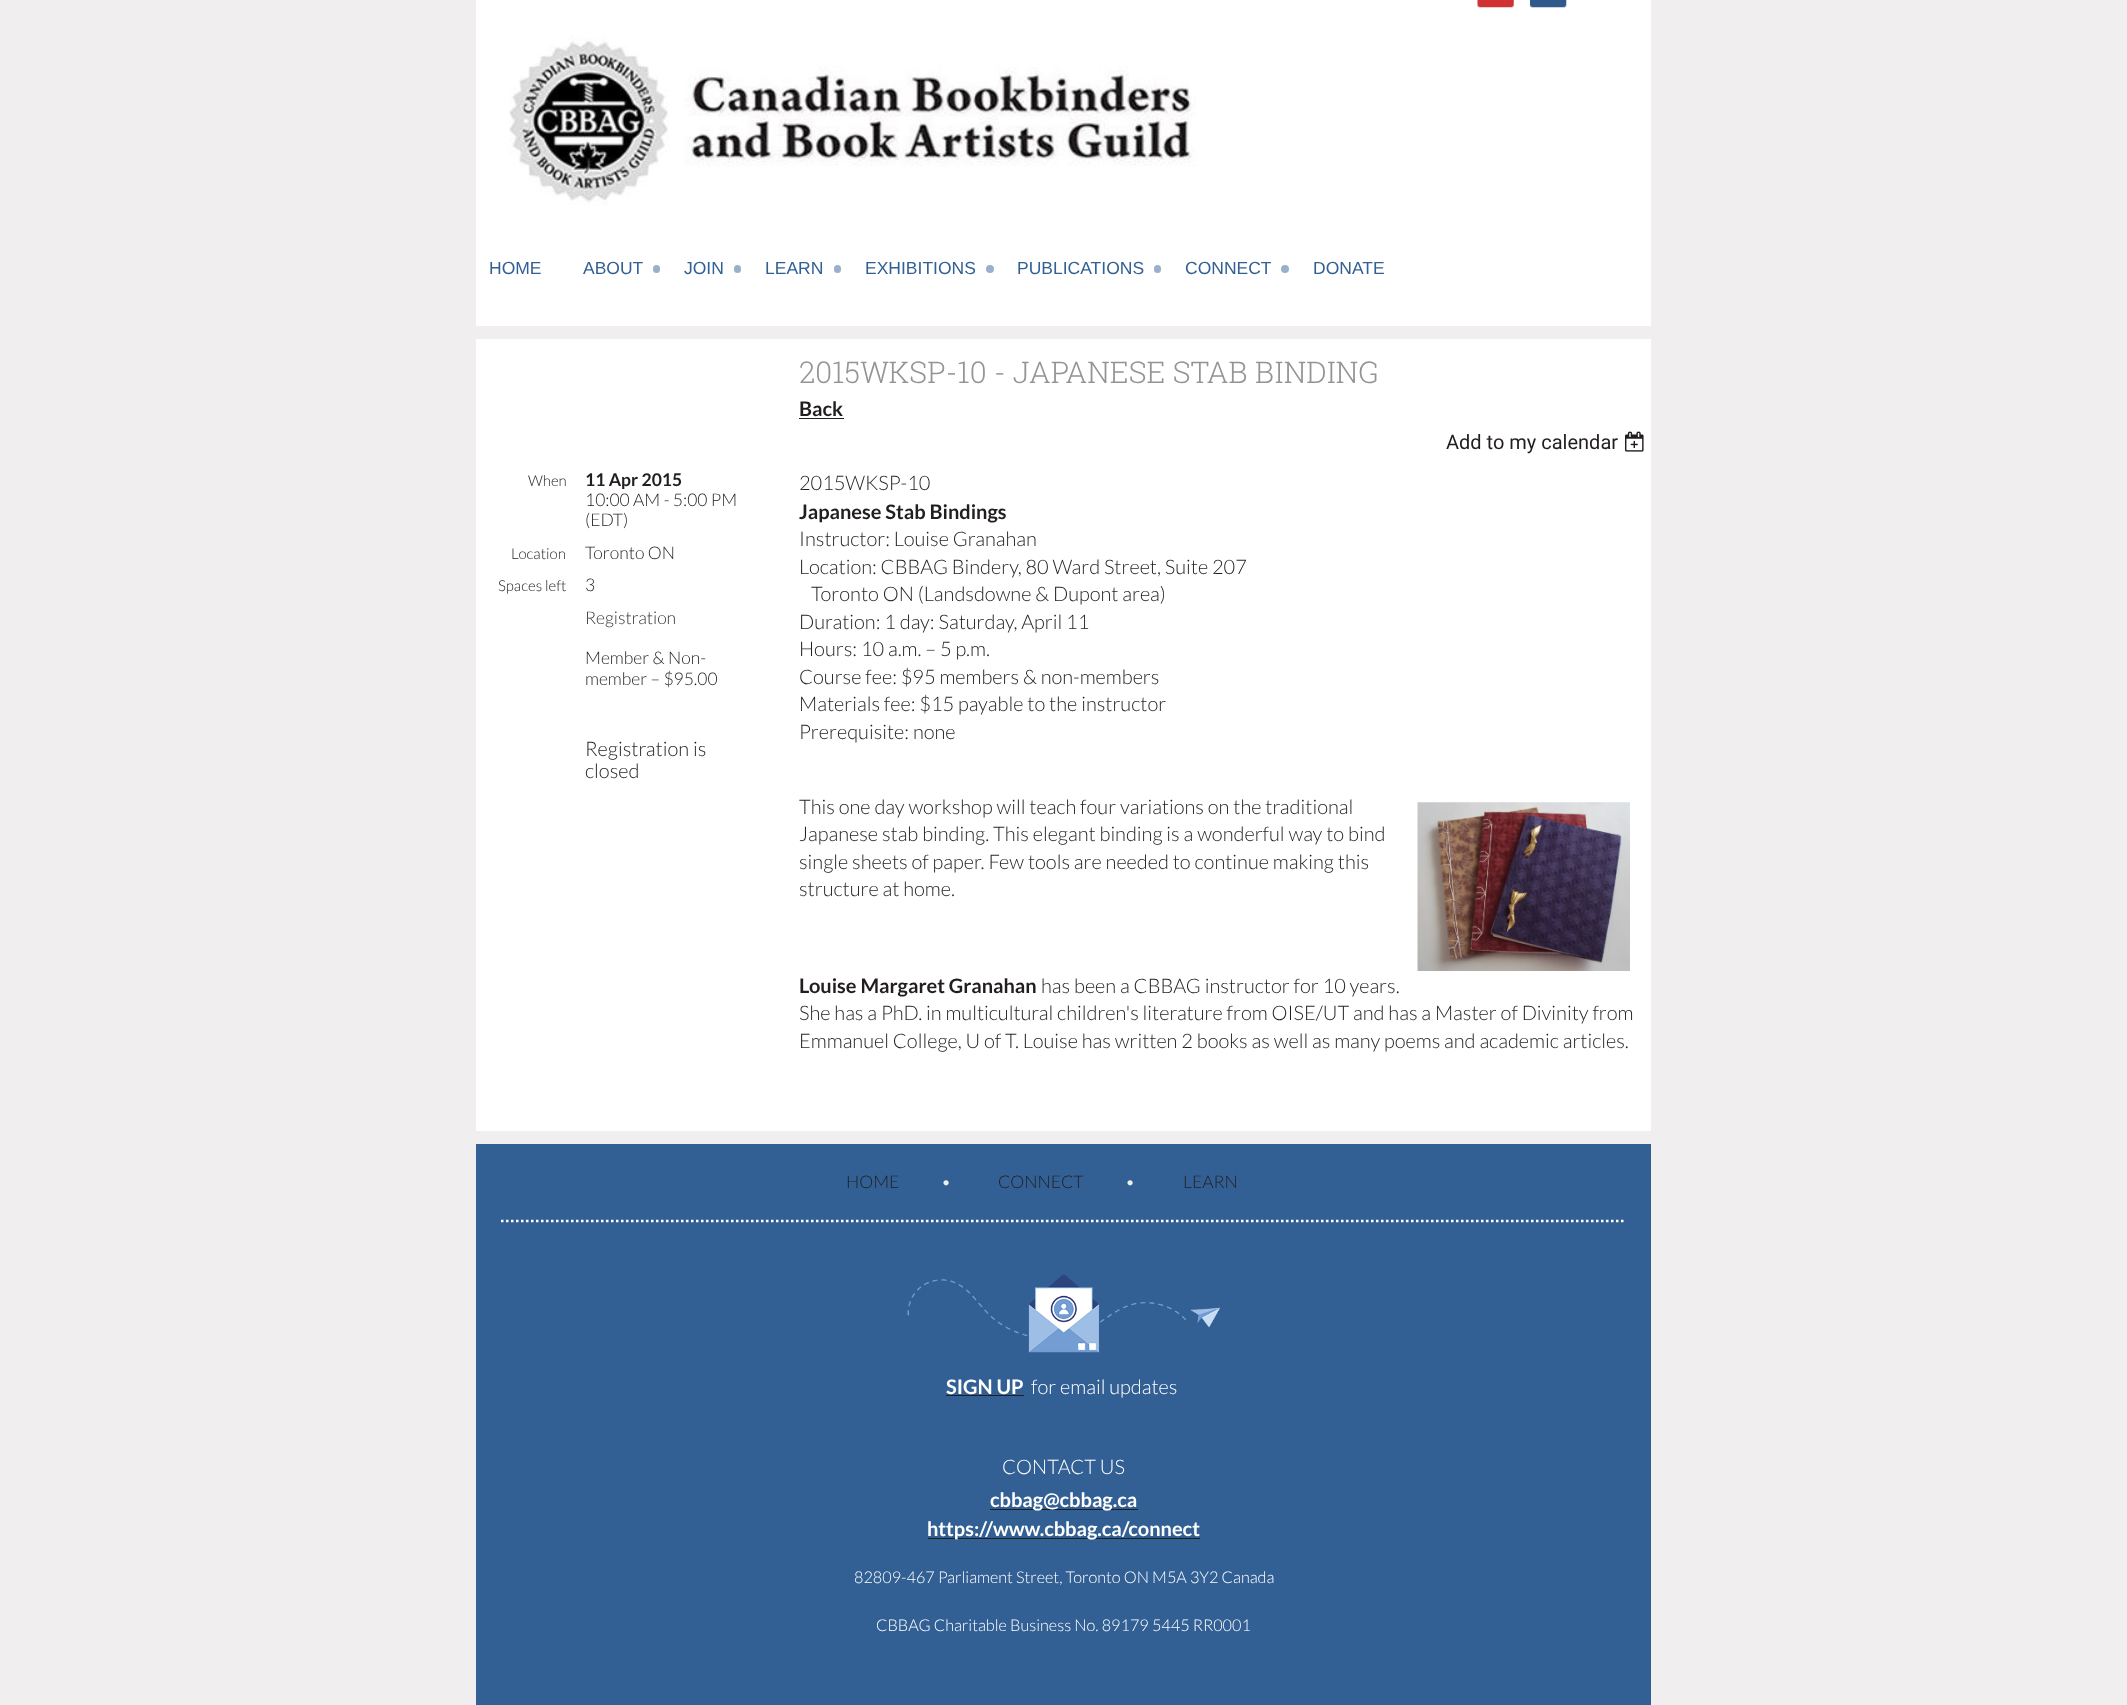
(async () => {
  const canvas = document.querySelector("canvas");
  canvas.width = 2127;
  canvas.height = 1705;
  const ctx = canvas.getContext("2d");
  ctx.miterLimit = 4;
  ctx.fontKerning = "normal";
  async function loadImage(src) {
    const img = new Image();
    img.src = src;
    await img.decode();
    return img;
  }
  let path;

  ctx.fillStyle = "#f0eeee";
  ctx.fillRect(0, 0, 2127, 1705);
  ctx.fillStyle = "#ffffff";
  ctx.fillRect(476, 0, 1175, 326);
  ctx.drawImage(await loadImage("img/1.png"), 1477, 0, 37, 8);
  ctx.drawImage(await loadImage("img/2.png"), 1530, 0, 37, 8);
  ctx.drawImage(await loadImage("img/3.png"), 509, 36, 687, 170);
  ctx.fillStyle = "#9ab0ca";
  ctx.beginPath();
  ctx.roundRect(653, 265, 7, 8, 3.5);
  ctx.fill();
  ctx.beginPath();
  ctx.roundRect(734, 265, 7, 8, 3.5);
  ctx.fill();
  ctx.beginPath();
  ctx.roundRect(834, 265, 7, 8, 3.5);
  ctx.fill();
  ctx.beginPath();
  ctx.arc(990, 269, 4, 0, Math.PI * 2);
  ctx.fill();
  ctx.beginPath();
  ctx.roundRect(1154, 265, 7, 8, 3.5);
  ctx.fill();
  ctx.beginPath();
  ctx.arc(1285, 269, 4, 0, Math.PI * 2);
  ctx.fill();
  ctx.fillStyle = "#ffffff";
  ctx.fillRect(476, 339, 1175, 792);
  ctx.fillStyle = "#221e1f";
  ctx.fillRect(799, 418, 45, 1);
  ctx.drawImage(await loadImage("img/4.png"), 1625, 431, 19, 21);
  ctx.drawImage(await loadImage("img/5.png"), 1417, 802, 213, 169);
  ctx.fillStyle = "#326094";
  ctx.fillRect(476, 1144, 1175, 561);
  path = new Path2D("M501 1221H1626");
  ctx.strokeStyle = "#ffffff";
  ctx.lineWidth = 2.5;
  ctx.setLineDash([2.5, 2.5]);
  ctx.stroke(path);
  ctx.drawImage(await loadImage("img/6.png"), 907, 1274, 313, 79);
  for (const [x, y, w, h, color] of [
    [946, 1395, 78, 1, "#221e1f"],
    [990, 1509, 148, 1, "#221e1f"],
    [928, 1538, 272, 1, "#221e1f"],
  ]) {
    ctx.fillStyle = color;
    ctx.fillRect(x, y, w, h);
  }
  ctx.font = "17.5px Liberation Sans";
  ctx.fillStyle = "#326094";
  for (const [text, x, y] of [
    ["HOME", 489, 274],
    ["ABOUT", 583, 274],
    ["JOIN", 684, 274],
    ["LEARN", 765, 274],
    ["EXHIBITIONS", 865, 274],
    ["PUBLICATIONS", 1017, 274],
    ["CONNECT", 1185, 274],
    ["DONATE", 1313, 274],
  ]) {
    ctx.fillText(text, x, y);
  }
  ctx.font = "300 30px Roboto Slab";
  ctx.fillStyle = "#949493";
  ctx.fillText("2015WKSP-10 - JAPANESE STAB BINDING", 799, 383);
  ctx.font = "bold 20px Lato";
  ctx.fillStyle = "#221e1f";
  ctx.fillText("Back", 799, 416);
  ctx.font = "20px Roboto";
  ctx.fillText("Add to my calendar", 1446, 449);
  ctx.font = "300 15px Lato";
  ctx.fillText("When", 528, 486);
  ctx.font = "bold 17.5px Lato";
  ctx.fillText("11 Apr 2015", 585, 486);
  ctx.font = "300 17.5px Lato";
  ctx.fillText("10:00 AM - 5:00 PM", 585, 506);
  ctx.fillText("(EDT)", 585, 526);
  ctx.font = "300 15px Lato";
  ctx.fillText("Location", 511, 559);
  ctx.font = "300 17.5px Lato";
  ctx.fillText("Toronto ON", 585, 559);
  ctx.font = "300 15px Lato";
  ctx.fillText("Spaces left", 498, 591);
  ctx.font = "300 17.5px Lato";
  ctx.fillText("3", 585, 591);
  ctx.fillStyle = "#333333";
  ctx.fillText("Registration", 585, 624);
  ctx.fillStyle = "#221e1f";
  ctx.fillText("Member & Non-", 585, 664);
  ctx.fillText("member – $95.00", 585, 685);
  ctx.font = "300 20px Lato";
  for (const [text, x, y] of [
    ["Registration is", 585, 756],
    ["closed", 585, 778],
    ["2015WKSP-10", 799, 490],
  ]) {
    ctx.fillText(text, x, y);
  }
  ctx.font = "bold 20px Lato";
  ctx.fillText("Japanese Stab Bindings", 799, 519);
  ctx.font = "300 20px Lato";
  for (const [text, x, y] of [
    ["Instructor: Louise Granahan", 799, 546],
    ["Location: CBBAG Bindery, 80 Ward Street, Suite 207", 799, 574],
    ["Toronto ON (Landsdowne & Dupont area)", 811, 601],
    ["Duration: 1 day: Saturday, April 11", 799, 629],
    ["Hours: 10 a.m. – 5 p.m.", 799, 656],
    ["Course fee: $95 members & non-members", 799, 684],
    ["Materials fee: $15 payable to the instructor", 799, 711],
    ["Prerequisite: none", 799, 739],
    ["This one day workshop will teach four variations on the traditional", 799, 814],
    ["Japanese stab binding. This elegant binding is a wonderful way to bind", 799, 841],
    ["single sheets of paper. Few tools are needed to continue making this", 799, 869],
    ["structure at home.", 799, 896],
  ]) {
    ctx.fillText(text, x, y);
  }
  ctx.font = "bold 20px Lato";
  ctx.fillText("Louise Margaret Granahan", 799, 993);
  ctx.font = "300 20px Lato";
  for (const [text, x, y] of [
    ["has been a CBBAG instructor for 10 years.", 1041, 993],
    ["She has a PhD. in multicultural children's literature from OISE/UT and has a Master of Divinity from", 799, 1020],
    ["Emmanuel College, U of T. Louise has written 2 books as well as many poems and academic articles.", 799, 1048],
  ]) {
    ctx.fillText(text, x, y);
  }
  ctx.font = "300 17.5px Lato";
  ctx.fillText("HOME", 846, 1188);
  ctx.fillStyle = "#eeeeee";
  ctx.fillText("•", 941, 1188);
  ctx.fillStyle = "#221e1f";
  ctx.fillText("CONNECT", 998, 1188);
  ctx.fillStyle = "#eeeeee";
  ctx.fillText("•", 1125, 1188);
  ctx.fillStyle = "#221e1f";
  ctx.fillText("LEARN", 1183, 1188);
  ctx.font = "bold 20px Lato";
  ctx.fillStyle = "#ffffff";
  ctx.fillText("SIGN UP", 946, 1394);
  ctx.font = "300 20px Lato";
  ctx.fillText("for email updates", 1031, 1394);
  ctx.fillText("CONTACT US", 1002, 1474);
  ctx.font = "bold 20px Lato";
  ctx.fillText("cbbag@cbbag.ca", 990, 1507);
  ctx.fillText("https://www.cbbag.ca/connect", 927, 1536);
  ctx.font = "300 16.25px Lato";
  ctx.fillText("82809-467 Parliament Street, Toronto ON M5A 3Y2 Canada", 854, 1583);
  ctx.fillText("CBBAG Charitable Business No. 89179 5445 RR0001", 876, 1631);
})();
